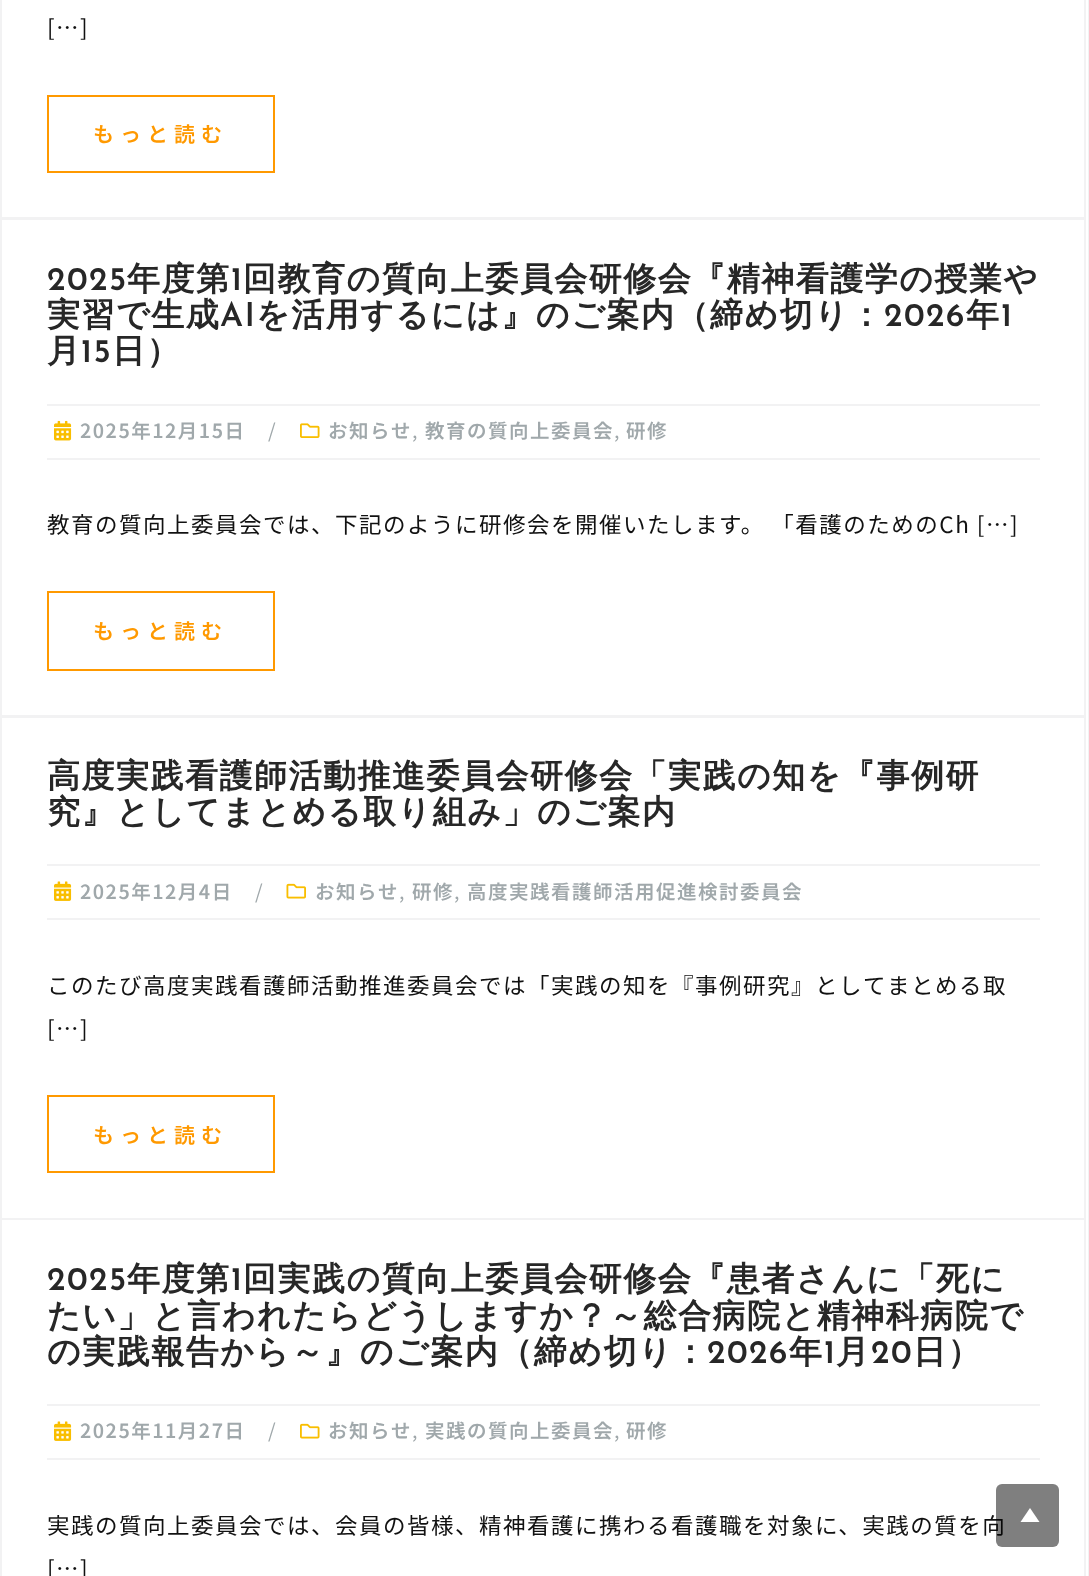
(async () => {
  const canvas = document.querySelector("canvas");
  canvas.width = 1089;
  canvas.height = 1576;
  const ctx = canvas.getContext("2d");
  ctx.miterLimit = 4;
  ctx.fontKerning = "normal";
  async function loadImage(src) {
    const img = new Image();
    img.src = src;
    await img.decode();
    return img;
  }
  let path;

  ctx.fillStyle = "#ffffff";
  ctx.fillRect(0, 0, 1089, 1576);
  ctx.fillStyle = "#f2f2f3";
  ctx.fillRect(1088, 0, 1, 1576);
  ctx.strokeStyle = "#f2f2f3";
  ctx.lineWidth = 2;
  ctx.strokeRect(1, -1, 1084, 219);
  ctx.strokeStyle = "#ff9900";
  ctx.strokeRect(48, 96, 226, 76);
  ctx.strokeStyle = "#f2f2f3";
  ctx.strokeRect(1, 219, 1084, 497);
  ctx.fillRect(47, 404, 993, 2);
  ctx.fillRect(47, 458, 993, 2);
  ctx.drawImage(await loadImage("img/1.png"), 54, 420, 18, 21);
  ctx.drawImage(await loadImage("img/2.png"), 300, 423, 20, 15);
  ctx.strokeStyle = "#ff9900";
  ctx.strokeRect(48, 592, 226, 78);
  ctx.strokeStyle = "#f2f2f3";
  ctx.strokeRect(1, 717, 1084, 502);
  ctx.fillRect(47, 864, 993, 2);
  ctx.fillRect(47, 918, 993, 2);
  ctx.drawImage(await loadImage("img/3.png"), 54, 881, 18, 20);
  ctx.drawImage(await loadImage("img/4.png"), 286, 883, 20, 16);
  ctx.strokeStyle = "#ff9900";
  ctx.strokeRect(48, 1096, 226, 76);
  ctx.strokeStyle = "#f2f2f3";
  ctx.strokeRect(1, 1219, 1084, 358);
  ctx.fillRect(47, 1404, 993, 2);
  ctx.fillRect(47, 1458, 993, 2);
  ctx.drawImage(await loadImage("img/3.png"), 54, 1421, 18, 20);
  ctx.drawImage(await loadImage("img/5.png"), 300, 1423, 20, 16);
  ctx.letterSpacing = "1.5px";
  ctx.font = "22.5px Noto Sans JP";
  ctx.fillStyle = "#111111";
  ctx.fillText("[…]", 47, 36);
  ctx.letterSpacing = "6px";
  ctx.font = "600 21px Noto Sans JP";
  ctx.fillStyle = "#ff9900";
  ctx.fillText("もっと読む", 93, 142);
  ctx.letterSpacing = "1.5px";
  ctx.font = "600 33px Josefin Sans";
  ctx.fillStyle = "#272727";
  ctx.fillText("2025", 47, 290);
  ctx.font = "bold 33px WenQuanYi Zen Hei";
  ctx.fillText("年度第", 127, 290);
  ctx.font = "600 33px Josefin Sans";
  ctx.fillText("1", 231, 290);
  ctx.font = "bold 33px WenQuanYi Zen Hei";
  ctx.fillText("回教育の質向上委員会研修会『精神看護学の授業や", 243, 290);
  ctx.fillText("実習で生成", 47, 326);
  ctx.font = "600 33px Josefin Sans";
  ctx.fillText("AI", 220, 326);
  ctx.font = "bold 33px WenQuanYi Zen Hei";
  ctx.fillText("を活用するには』のご案内（締め切り：", 256, 326);
  ctx.font = "600 33px Josefin Sans";
  ctx.fillText("2026", 884, 326);
  ctx.font = "bold 33px WenQuanYi Zen Hei";
  ctx.fillText("年", 966, 326);
  ctx.font = "600 33px Josefin Sans";
  ctx.fillText("1", 1001, 326);
  ctx.font = "bold 33px WenQuanYi Zen Hei";
  ctx.fillText("月", 47, 362);
  ctx.font = "600 33px Josefin Sans";
  ctx.fillText("15", 81, 362);
  ctx.font = "bold 33px WenQuanYi Zen Hei";
  ctx.fillText("日）", 112, 362);
  ctx.font = "600 19.5px Noto Sans JP";
  ctx.fillStyle = "#a0a8ab";
  ctx.fillText("2025年12月15日", 80, 438);
  ctx.font = "19.5px Noto Sans JP";
  ctx.fillText("/", 268, 438);
  ctx.font = "600 19.5px Noto Sans JP";
  ctx.fillText("お知らせ", 328, 438);
  ctx.font = "19.5px Noto Sans JP";
  ctx.fillText(",", 412, 438);
  ctx.font = "600 19.5px Noto Sans JP";
  ctx.fillText("教育の質向上委員会", 425, 438);
  ctx.font = "19.5px Noto Sans JP";
  ctx.fillText(",", 614, 438);
  ctx.font = "600 19.5px Noto Sans JP";
  ctx.fillText("研修", 626, 438);
  ctx.font = "22.5px Noto Sans JP";
  ctx.fillStyle = "#111111";
  ctx.fillText("教育の質向上委員会では、下記のように研修会を開催いたします。 「看護のためのCh […]", 47, 533);
  ctx.letterSpacing = "6px";
  ctx.font = "600 21px Noto Sans JP";
  ctx.fillStyle = "#ff9900";
  ctx.fillText("もっと読む", 93, 639);
  ctx.letterSpacing = "1.5px";
  ctx.font = "bold 33px WenQuanYi Zen Hei";
  ctx.fillStyle = "#272727";
  ctx.fillText("高度実践看護師活動推進委員会研修会「実践の知を『事例研", 47, 787);
  ctx.fillText("究』としてまとめる取り組み」のご案内", 47, 823);
  ctx.font = "600 19.5px Noto Sans JP";
  ctx.fillStyle = "#a0a8ab";
  ctx.fillText("2025年12月4日", 80, 899);
  ctx.font = "19.5px Noto Sans JP";
  ctx.fillText("/", 255, 899);
  ctx.font = "600 19.5px Noto Sans JP";
  ctx.fillText("お知らせ", 315, 899);
  ctx.font = "19.5px Noto Sans JP";
  ctx.fillText(",", 399, 899);
  ctx.font = "600 19.5px Noto Sans JP";
  ctx.fillText("研修", 412, 899);
  ctx.font = "19.5px Noto Sans JP";
  ctx.fillText(",", 454, 899);
  ctx.font = "600 19.5px Noto Sans JP";
  ctx.fillText("高度実践看護師活用促進検討委員会", 467, 899);
  ctx.font = "22.5px Noto Sans JP";
  ctx.fillStyle = "#111111";
  ctx.fillText("このたび高度実践看護師活動推進委員会では「実践の知を『事例研究』としてまとめる取", 47, 994);
  ctx.fillText("[…]", 47, 1037);
  ctx.letterSpacing = "6px";
  ctx.font = "600 21px Noto Sans JP";
  ctx.fillStyle = "#ff9900";
  ctx.fillText("もっと読む", 93, 1143);
  ctx.letterSpacing = "1.5px";
  ctx.font = "600 33px Josefin Sans";
  ctx.fillStyle = "#272727";
  ctx.fillText("2025", 47, 1290);
  ctx.font = "bold 33px WenQuanYi Zen Hei";
  ctx.fillText("年度第", 127, 1290);
  ctx.font = "600 33px Josefin Sans";
  ctx.fillText("1", 231, 1290);
  ctx.font = "bold 33px WenQuanYi Zen Hei";
  for (const [text, x, y] of [
    ["回実践の質向上委員会研修会『患者さんに「死に", 243, 1290],
    ["たい」と言われたらどうしますか？～総合病院と精神科病院で", 47, 1327],
    ["の実践報告から～』のご案内（締め切り：", 47, 1363],
  ]) {
    ctx.fillText(text, x, y);
  }
  ctx.font = "600 33px Josefin Sans";
  ctx.fillText("2026", 707, 1363);
  ctx.font = "bold 33px WenQuanYi Zen Hei";
  ctx.fillText("年", 789, 1363);
  ctx.font = "600 33px Josefin Sans";
  ctx.fillText("1", 824, 1363);
  ctx.font = "bold 33px WenQuanYi Zen Hei";
  ctx.fillText("月", 836, 1363);
  ctx.font = "600 33px Josefin Sans";
  ctx.fillText("20", 871, 1363);
  ctx.font = "bold 33px WenQuanYi Zen Hei";
  ctx.fillText("日）", 913, 1363);
  ctx.font = "600 19.5px Noto Sans JP";
  ctx.fillStyle = "#a0a8ab";
  ctx.fillText("2025年11月27日", 80, 1438);
  ctx.font = "19.5px Noto Sans JP";
  ctx.fillText("/", 268, 1438);
  ctx.font = "600 19.5px Noto Sans JP";
  ctx.fillText("お知らせ", 328, 1438);
  ctx.font = "19.5px Noto Sans JP";
  ctx.fillText(",", 412, 1438);
  ctx.font = "600 19.5px Noto Sans JP";
  ctx.fillText("実践の質向上委員会", 425, 1438);
  ctx.font = "19.5px Noto Sans JP";
  ctx.fillText(",", 614, 1438);
  ctx.font = "600 19.5px Noto Sans JP";
  ctx.fillText("研修", 626, 1438);
  ctx.font = "22.5px Noto Sans JP";
  ctx.fillStyle = "#111111";
  ctx.fillText("実践の質向上委員会では、会員の皆様、精神看護に携わる看護職を対象に、実践の質を向", 47, 1534);
  ctx.fillText("[…]", 47, 1577);
  ctx.fillStyle = "rgba(0, 0, 0, 0.5)";
  ctx.beginPath();
  ctx.roundRect(996, 1484, 63, 63, 6);
  ctx.fill();
  ctx.fillStyle = "#ffffff";
  path = new Path2D("M1030 1508L1020.5 1522H1039.5Z");
  ctx.fill(path);
})();
